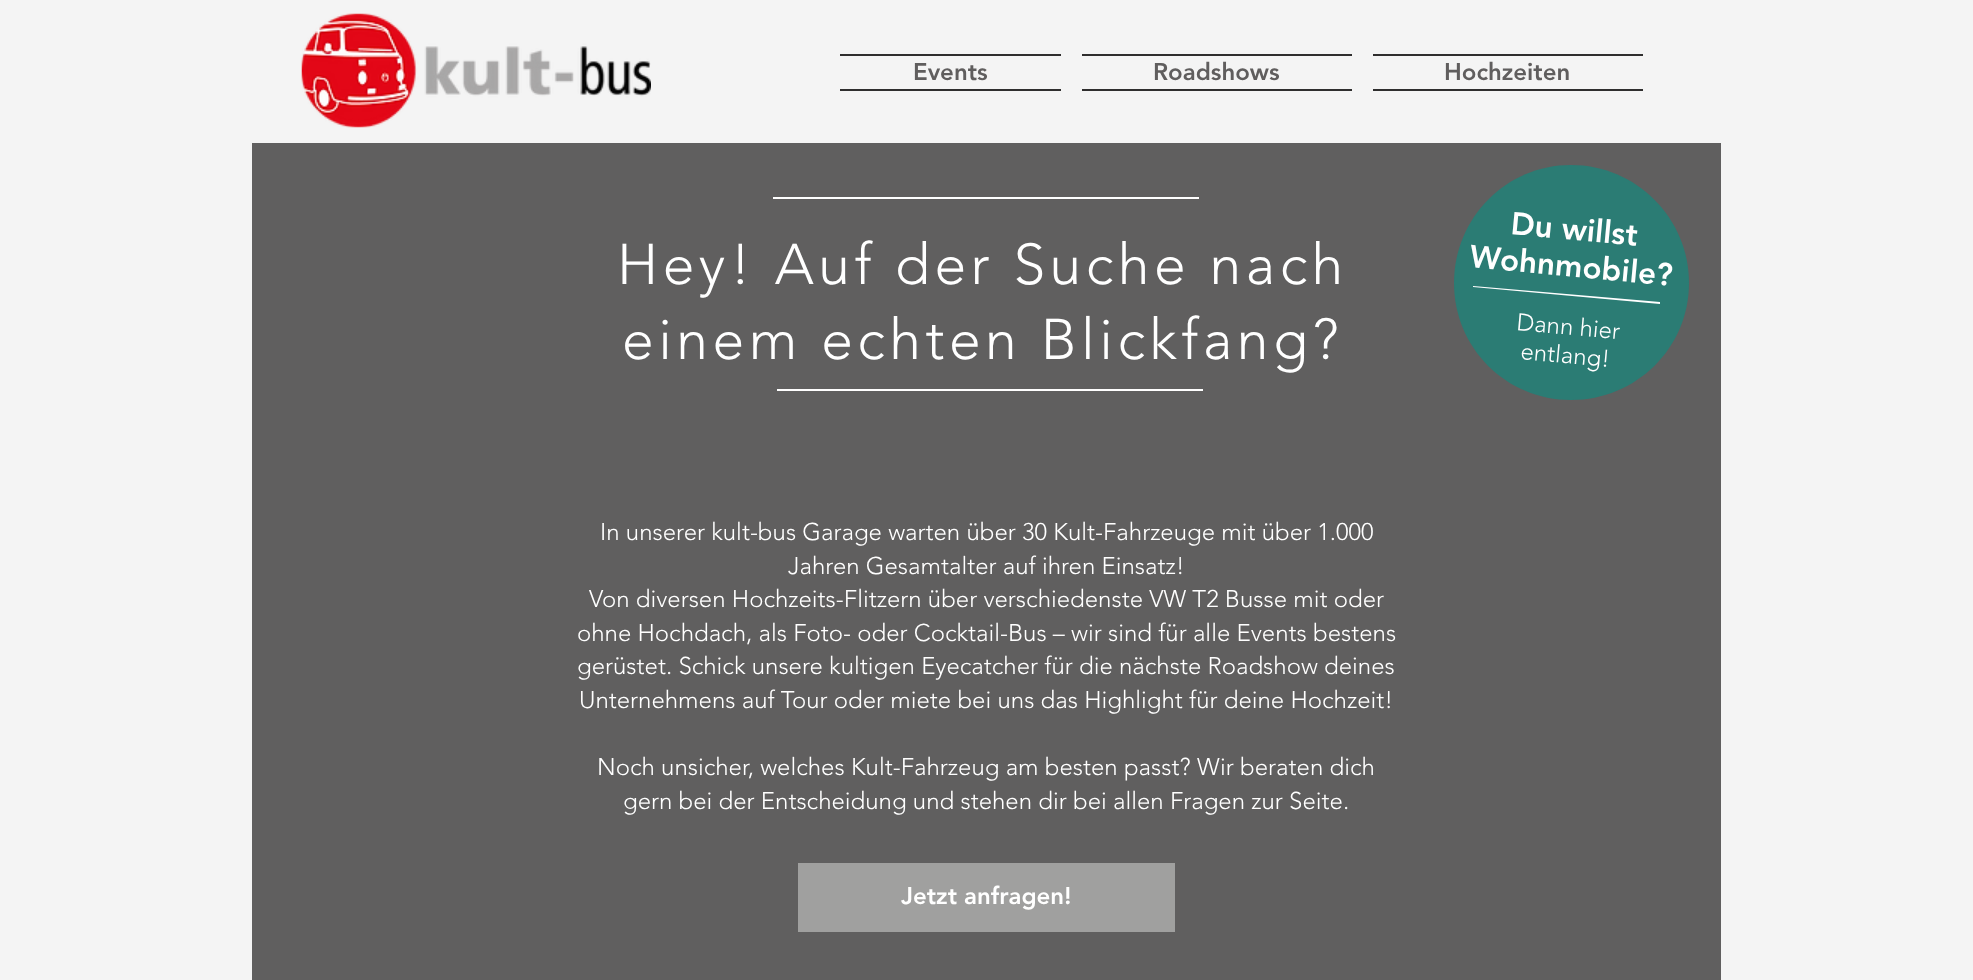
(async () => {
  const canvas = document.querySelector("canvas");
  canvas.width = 1973;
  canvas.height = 980;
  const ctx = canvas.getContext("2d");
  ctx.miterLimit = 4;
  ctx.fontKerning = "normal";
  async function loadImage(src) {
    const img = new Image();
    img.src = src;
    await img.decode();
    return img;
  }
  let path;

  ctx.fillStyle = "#f4f4f4";
  ctx.fillRect(0, 0, 1973, 980);
  ctx.drawImage(await loadImage("img/1.png"), 301, 13, 350, 115);
  for (const [x, y, w, h, color] of [
    [840, 54, 221, 2, "#2f2e2e"],
    [840, 89, 221, 2, "#2f2e2e"],
    [1082, 54, 270, 2, "#2f2e2e"],
    [1082, 89, 270, 2, "#2f2e2e"],
    [1373, 54, 270, 2, "#2f2e2e"],
    [1373, 89, 270, 2, "#2f2e2e"],
    [252, 143, 1469, 837, "#605f5f"],
    [773, 197, 426, 2, "#ffffff"],
    [777, 389, 426, 2, "#ffffff"],
  ]) {
    ctx.fillStyle = color;
    ctx.fillRect(x, y, w, h);
  }
  ctx.fillStyle = "#2b7c74";
  path = new Path2D("M1689 283C1689 348 1636 400 1571 400C1506 400 1454 348 1454 283C1454 218 1506 165 1571 165C1636 165 1689 218 1689 283Z");
  ctx.fill(path);
  ctx.fillStyle = "#ffffff";
  path = new Path2D("M1473 286L1660 302V304L1473 287Z");
  ctx.fill(path);
  ctx.fillStyle = "#a0a09f";
  ctx.fillRect(798, 863, 377, 69);
  ctx.font = "900 24px 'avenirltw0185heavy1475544'";
  ctx.fillStyle = "#605e5e";
  for (const [text, x, y] of [
    ["Events", 913, 80],
    ["Roadshows", 1153, 80],
    ["Hochzeiten", 1444, 80],
  ]) {
    ctx.fillText(text, x, y);
  }
  ctx.letterSpacing = "4.5px";
  ctx.font = "300 57px 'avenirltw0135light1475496'";
  ctx.fillStyle = "#ffffff";
  ctx.fillText("Hey! Auf der Suche nach", 617, 284);
  ctx.fillText("einem echten Blickfang?", 622, 359);
  ctx.letterSpacing = "0px";
  ctx.font = "900 31.5px 'avenirltw0185heavy1475544'";
  ctx.save();
  ctx.translate(1510, 234);
  ctx.rotate(5.3 * Math.PI / 180);
  ctx.fillText("Du willst", 0, 0);
  ctx.restore();
  ctx.save();
  ctx.translate(1469, 267);
  ctx.rotate(5.3 * Math.PI / 180);
  ctx.fillText("Wohnmobi", 0, 0);
  ctx.restore();
  ctx.save();
  ctx.translate(1629, 282);
  ctx.rotate(5.3 * Math.PI / 180);
  ctx.fillText("le?", 0, 0);
  ctx.restore();
  ctx.font = "300 24px 'avenirltw0135light1475496'";
  ctx.save();
  ctx.translate(1516, 330);
  ctx.rotate(5.1 * Math.PI / 180);
  ctx.fillText("Dann hier", 0, 0);
  ctx.restore();
  ctx.save();
  ctx.translate(1520, 359);
  ctx.rotate(5.1 * Math.PI / 180);
  ctx.fillText("entlang!", 0, 0);
  ctx.restore();
  for (const [text, x, y] of [
    ["In unserer kult-bus Garage warten über 30 Kult-Fahrzeuge mit über 1.000", 600, 540],
    ["Jahren Gesamtalter auf ihren Einsatz!", 788, 574],
    ["Von diversen Hochzeits-Flitzern über verschiedenste VW T2 Busse mit oder", 589, 607],
    ["ohne Hochdach, als Foto- oder Cocktail-Bus – wir sind für alle Events bestens", 577, 641],
    ["gerüstet. Schick unsere kultigen Eyecatcher für die nächste Roadshow deines", 577, 674],
    ["Unternehmens auf Tour oder miete bei uns das Highlight für deine Hochzeit!", 579, 708],
    ["Noch unsicher, welches Kult-Fahrzeug am besten passt? Wir beraten dich", 597, 775],
    ["gern bei der Entscheidung und stehen dir bei allen Fragen zur Seite.", 623, 809],
  ]) {
    ctx.fillText(text, x, y);
  }
  ctx.font = "900 24px 'avenirltw0185heavy1475544'";
  ctx.fillText("Jetzt anfragen!", 901, 904);
})();
